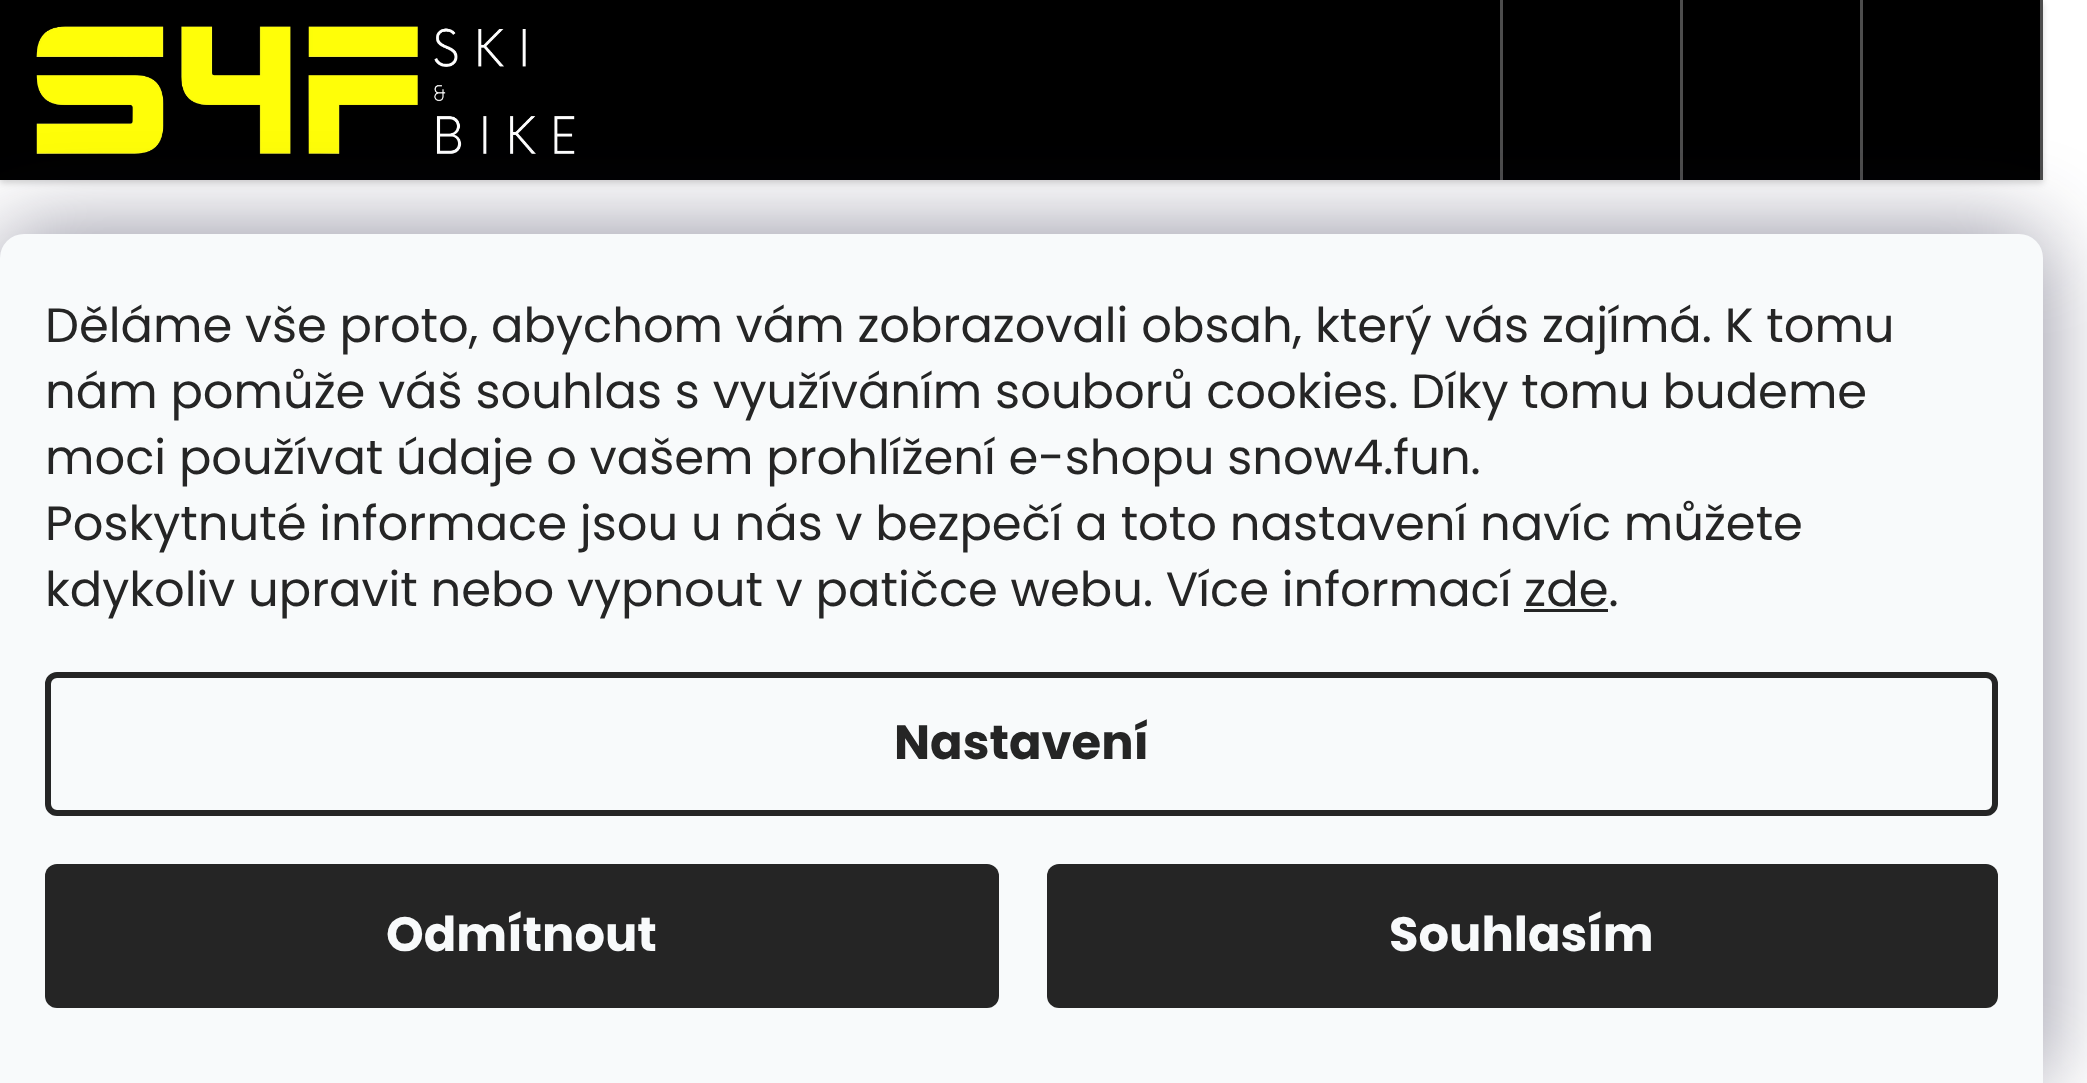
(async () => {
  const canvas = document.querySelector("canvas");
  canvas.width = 2087;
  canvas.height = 1083;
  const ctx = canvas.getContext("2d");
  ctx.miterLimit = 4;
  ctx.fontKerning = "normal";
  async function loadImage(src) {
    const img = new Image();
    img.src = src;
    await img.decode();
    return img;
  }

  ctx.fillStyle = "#ffffff";
  ctx.fillRect(0, 0, 2087, 1083);
  ctx.fillStyle = "rgba(0, 0, 0, 0.16)";
  ctx.filter = "blur(3px)";
  ctx.beginPath();
  ctx.rect(0, 3, 2043, 180);
  ctx.fill();
  ctx.filter = "none";
  ctx.fillStyle = "#000000";
  ctx.fillRect(0, 0, 2040, 180);
  ctx.drawImage(await loadImage("img/1.png"), 36, 26, 539, 128);
  for (const [x, y, w, h, color] of [
    [2040, 0, 3, 180, "#4d4d4d"],
    [1500, 0, 3, 180, "#4d4d4d"],
    [1680, 0, 3, 180, "#4d4d4d"],
    [1860, 0, 3, 180, "#4d4d4d"],
  ]) {
    ctx.fillStyle = color;
    ctx.fillRect(x, y, w, h);
  }
  ctx.fillStyle = "rgba(27, 25, 57, 0.5)";
  ctx.filter = "blur(45px)";
  ctx.beginPath();
  ctx.roundRect(0, 234, 2043, 849, 24);
  ctx.fill();
  ctx.filter = "none";
  ctx.fillStyle = "#f8fafb";
  ctx.beginPath();
  ctx.roundRect(0, 234, 2043, 849, [24, 24, 0, 0]);
  ctx.fill();
  ctx.fillStyle = "#252525";
  ctx.fillRect(1524, 609, 84, 3);
  ctx.beginPath();
  ctx.roundRect(48, 675, 1947, 138, 9);
  ctx.strokeStyle = "#252525";
  ctx.lineWidth = 6;
  ctx.stroke();
  ctx.beginPath();
  ctx.roundRect(45, 864, 954, 144, 12);
  ctx.fill();
  ctx.beginPath();
  ctx.roundRect(1047, 864, 951, 144, 12);
  ctx.fill();
  ctx.font = "48px Poppins";
  for (const [text, x, y] of [
    ["Děláme vše proto, abychom vám zobrazovali obsah, který vás zajímá. K tomu", 45, 342],
    ["nám pomůže váš souhlas s využíváním souborů cookies. Díky tomu budeme", 45, 408],
    ["moci používat údaje o vašem prohlížení e-shopu snow4.fun.", 45, 474],
    ["Poskytnuté informace jsou u nás v bezpečí a toto nastavení navíc můžete", 45, 540],
    ["kdykoliv upravit nebo vypnout v patičce webu. Více informací zde.", 45, 606],
  ]) {
    ctx.fillText(text, x, y);
  }
  ctx.font = "bold 48px Poppins";
  ctx.fillText("Nastavení", 894, 759);
  ctx.fillStyle = "#f8fafb";
  ctx.fillText("Odmítnout", 386, 951);
  ctx.fillText("Souhlasím", 1389, 951);
})();
